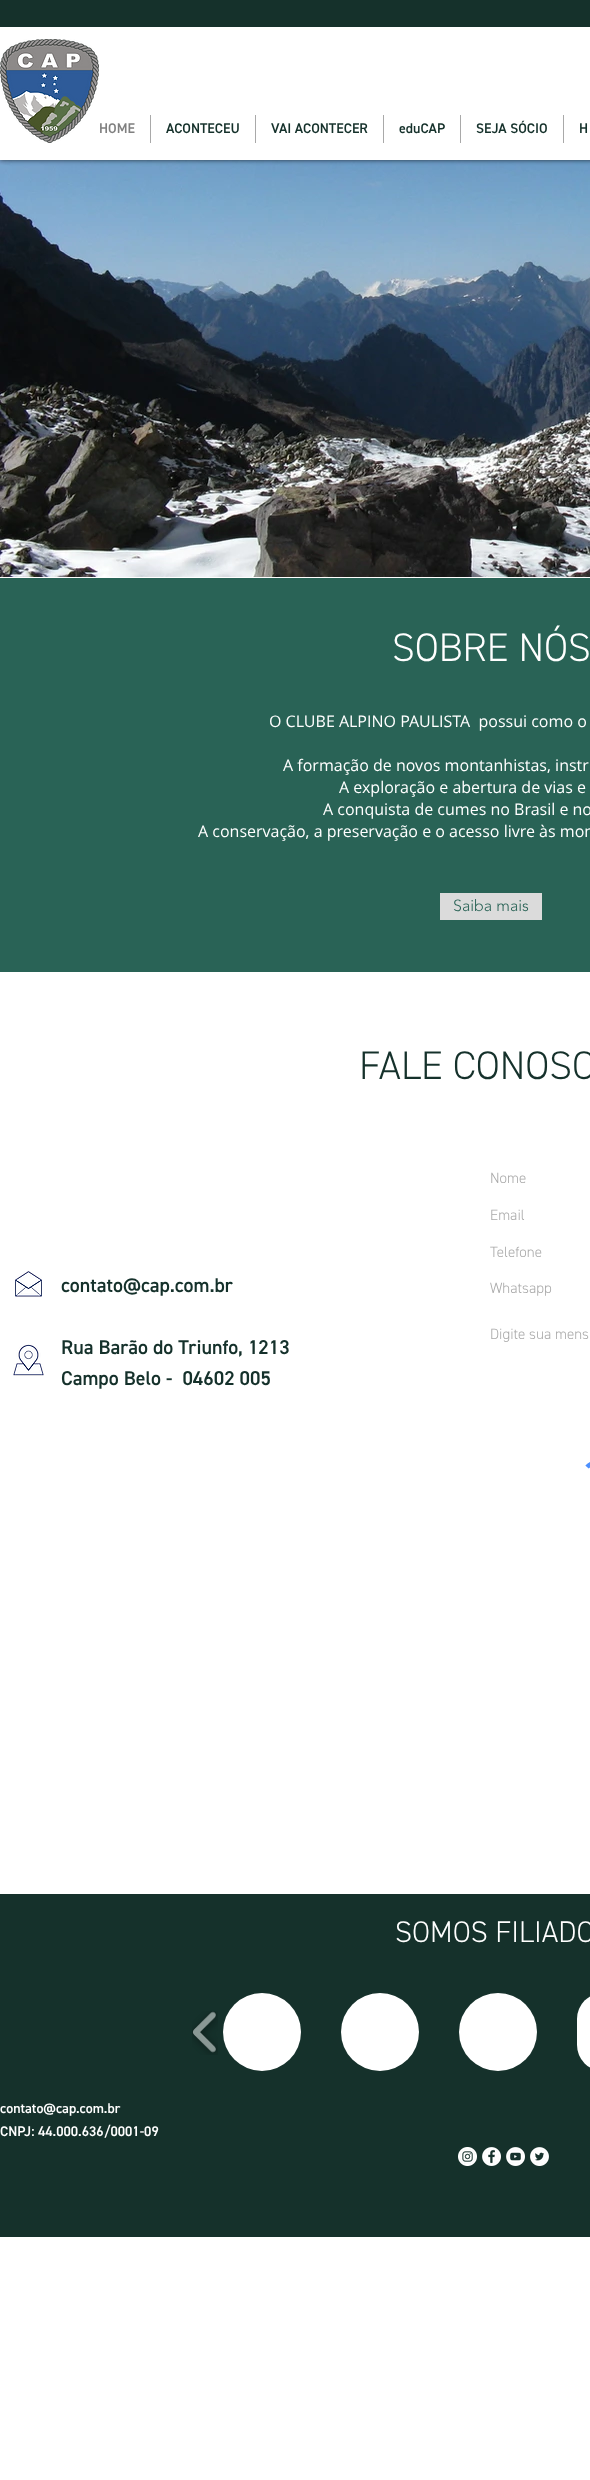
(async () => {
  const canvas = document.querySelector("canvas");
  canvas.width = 590;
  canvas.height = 2480;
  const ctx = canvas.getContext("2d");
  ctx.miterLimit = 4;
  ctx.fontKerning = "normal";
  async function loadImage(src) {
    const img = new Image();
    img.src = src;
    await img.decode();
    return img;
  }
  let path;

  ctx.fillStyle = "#ffffff";
  ctx.fillRect(0, 0, 590, 2480);
  ctx.drawImage(await loadImage("img/2.png"), 0, 160, 590, 417);
  ctx.fillStyle = "rgba(0, 0, 0, 0.7)";
  ctx.filter = "blur(2.5px)";
  ctx.beginPath();
  ctx.rect(0, 0, 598, 160);
  ctx.fill();
  ctx.filter = "none";
  ctx.fillStyle = "#ffffff";
  ctx.fillRect(0, 27, 590, 133);
  ctx.fillStyle = "#15312b";
  ctx.fillRect(0, 0, 590, 27);
  ctx.drawImage(await loadImage("img/1.png"), 0, 39, 99, 104);
  for (const [x, y, w, h, color] of [
    [150, 115, 1, 28, "#a9a9a9"],
    [255, 115, 1, 28, "#a9a9a9"],
    [383, 115, 1, 28, "#a9a9a9"],
    [460, 115, 1, 28, "#a9a9a9"],
    [563, 115, 1, 28, "#a9a9a9"],
    [0, 578, 590, 394, "#296356"],
    [440, 893, 102, 27, "#dbdbdb"],
  ]) {
    ctx.fillStyle = color;
    ctx.fillRect(x, y, w, h);
  }
  ctx.drawImage(await loadImage("img/3.png"), 15, 1271, 27, 26);
  path = new Path2D("M587 1467C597.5 1456 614 1472.5 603 1483");
  ctx.strokeStyle = "#4d90fe";
  ctx.lineWidth = 4.6;
  ctx.stroke(path);
  ctx.drawImage(await loadImage("img/4.png"), 13, 1344, 31, 32);
  ctx.fillStyle = "#15312b";
  ctx.fillRect(0, 1894, 590, 343);
  ctx.drawImage(await loadImage("img/5.png"), 192, 2011, 26, 44);
  ctx.fillStyle = "#ffffff";
  ctx.beginPath();
  ctx.arc(262, 2032, 39, 0, Math.PI * 2);
  ctx.fill();
  ctx.beginPath();
  ctx.arc(380, 2032, 39, 0, Math.PI * 2);
  ctx.fill();
  ctx.beginPath();
  ctx.arc(498, 2032, 39, 0, Math.PI * 2);
  ctx.fill();
  ctx.beginPath();
  ctx.roundRect(577, 1993, 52, 78, 39);
  ctx.fill();
  ctx.drawImage(await loadImage("img/6.png"), 458, 2147, 19, 19);
  ctx.drawImage(await loadImage("img/7.png"), 482, 2147, 19, 19);
  ctx.drawImage(await loadImage("img/8.png"), 506, 2147, 19, 19);
  ctx.drawImage(await loadImage("img/9.png"), 530, 2147, 19, 19);
  ctx.font = "600 14px 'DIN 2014'";
  ctx.fillStyle = "#808080";
  ctx.fillText("HOME", 99, 133);
  ctx.fillStyle = "#15312b";
  for (const [text, x, y] of [
    ["ACONTECEU", 166, 133],
    ["VAI ACONTECER", 271, 133],
    ["eduCAP", 399, 133],
    ["SEJA SÓCIO", 476, 133],
    ["H", 579, 133],
  ]) {
    ctx.fillText(text, x, y);
  }
  ctx.font = "300 40px 'DIN 2014'";
  ctx.fillStyle = "#ffffff";
  ctx.fillText("SOBRE NÓS", 392, 661);
  ctx.font = "16px Open Sans";
  for (const [text, x, y] of [
    ["O CLUBE ALPINO PAULISTA  possui como o", 269, 727],
    ["A formação de novos montanhistas, instr", 283, 771],
    ["A exploração e abertura de vias e", 339, 793],
    ["A conquista de cumes no Brasil e no", 323, 815],
    ["A conservação, a preservação e o acesso livre às mon", 198, 837],
  ]) {
    ctx.fillText(text, x, y);
  }
  ctx.font = "300 16px 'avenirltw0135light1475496'";
  ctx.fillStyle = "#296356";
  ctx.fillText("Saiba mais", 453, 911);
  ctx.font = "300 40px 'DIN 2014'";
  ctx.fillStyle = "#15312b";
  ctx.fillText("FALE CONOSC", 359, 1079);
  ctx.font = "600 20px 'DIN 2014'";
  for (const [text, x, y] of [
    ["contato@cap.com.br", 61, 1292],
    ["Rua Barão do Triunfo, 1213", 61, 1354],
    ["Campo Belo -  04602 005", 61, 1385],
  ]) {
    ctx.fillText(text, x, y);
  }
  ctx.font = "300 15px 'DIN 2014'";
  ctx.fillStyle = "#a9a9a9";
  for (const [text, x, y] of [
    ["Nome", 490, 1183],
    ["Email", 490, 1220],
    ["Telefone", 490, 1257],
    ["Whatsapp", 490, 1293],
    ["Digite sua mens", 490, 1339],
  ]) {
    ctx.fillText(text, x, y);
  }
  ctx.font = "300 30px 'DIN 2014'";
  ctx.fillStyle = "#ffffff";
  ctx.fillText("SOMOS FILIADO", 395, 1942);
  ctx.font = "600 14px 'DIN 2014'";
  ctx.fillText("contato@cap.com.br", 0, 2113);
  ctx.fillText("CNPJ: 44.000.636/0001-09", 0, 2136);
})();
